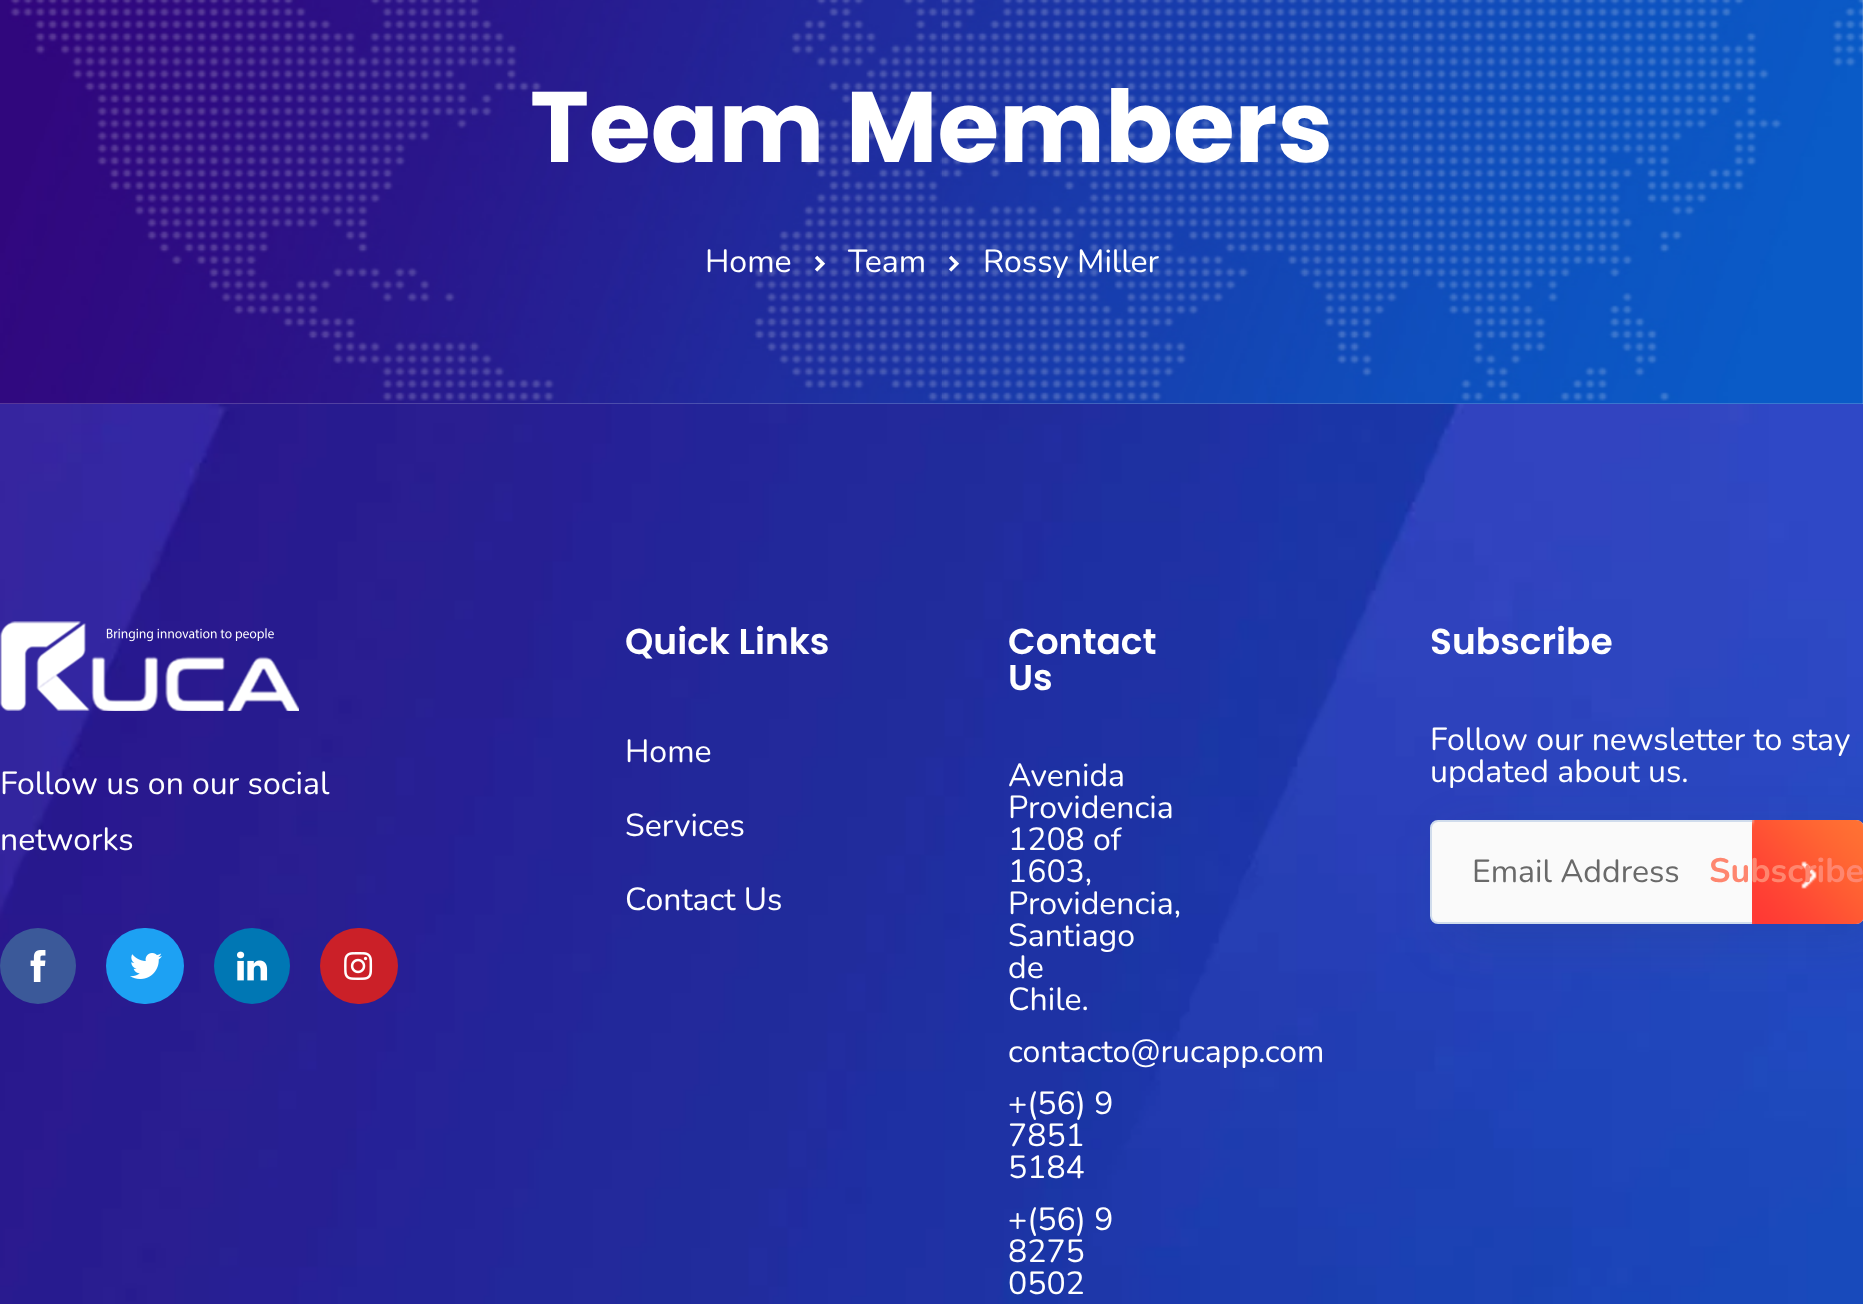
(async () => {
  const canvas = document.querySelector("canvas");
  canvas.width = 1863;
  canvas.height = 1304;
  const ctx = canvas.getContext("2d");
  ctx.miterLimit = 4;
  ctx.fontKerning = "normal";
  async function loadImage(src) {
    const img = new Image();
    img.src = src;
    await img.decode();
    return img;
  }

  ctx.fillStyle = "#ffffff";
  ctx.fillRect(0, 0, 1863, 1304);
  ctx.drawImage(await loadImage("img/1.png"), 0, 0, 1863, 404);
  ctx.drawImage(await loadImage("img/2.png"), 814, 255, 12, 17);
  ctx.drawImage(await loadImage("img/3.png"), 948, 255, 12, 17);
  ctx.drawImage(await loadImage("img/4.png"), 0, 404, 1863, 900);
  ctx.drawImage(await loadImage("img/5.png"), 0, 621, 299, 90);
  ctx.fillStyle = "#3b5999";
  ctx.beginPath();
  ctx.arc(38, 966, 38, 0, Math.PI * 2);
  ctx.fill();
  ctx.drawImage(await loadImage("img/6.png"), 30, 950, 16, 32);
  ctx.fillStyle = "#1da1f3";
  ctx.beginPath();
  ctx.roundRect(106, 928, 78, 76, 38);
  ctx.fill();
  ctx.drawImage(await loadImage("img/7.png"), 130, 953, 32, 26);
  ctx.fillStyle = "#0077b4";
  ctx.beginPath();
  ctx.arc(252, 966, 38, 0, Math.PI * 2);
  ctx.fill();
  ctx.drawImage(await loadImage("img/8.png"), 237, 951, 31, 30);
  ctx.fillStyle = "#cb2028";
  ctx.beginPath();
  ctx.roundRect(320, 928, 78, 76, 38);
  ctx.fill();
  ctx.drawImage(await loadImage("img/9.png"), 344, 952, 29, 28);
  ctx.fillStyle = "rgba(42, 67, 113, 0.15)";
  ctx.filter = "blur(25px)";
  ctx.beginPath();
  ctx.roundRect(1446, 836, 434, 104, 8);
  ctx.fill();
  ctx.filter = "none";
  ctx.fillStyle = "#fafafa";
  ctx.beginPath();
  ctx.roundRect(1431, 821, 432, 102, 7);
  ctx.fill();
  ctx.strokeStyle = "#d0dcec";
  ctx.lineWidth = 2;
  ctx.stroke();
  ctx.drawImage(await loadImage("img/10.png"), 1752, 820, 111, 104);
  ctx.font = "bold 100px Poppins";
  ctx.fillStyle = "#ffffff";
  ctx.fillText("Team Members", 530, 162);
  ctx.font = "32px Nunito";
  for (const [text, x, y] of [
    ["Home", 705, 272],
    ["Team", 848, 272],
    ["Rossy Miller", 983, 272],
    ["Follow us on our social", 0, 794],
    ["networks", 0, 850],
  ]) {
    ctx.fillText(text, x, y);
  }
  ctx.font = "600 36px Poppins";
  ctx.fillText("Quick Links", 625, 654);
  ctx.font = "32px Nunito";
  for (const [text, x, y] of [
    ["Home", 625, 762],
    ["Services", 625, 836],
    ["Contact Us", 625, 910],
  ]) {
    ctx.fillText(text, x, y);
  }
  ctx.font = "600 36px Poppins";
  ctx.fillText("Contact", 1008, 654);
  ctx.fillText("Us", 1008, 690);
  ctx.font = "32px Nunito";
  for (const [text, x, y] of [
    ["Avenida", 1008, 786],
    ["Providencia", 1008, 818],
    ["1208 of", 1008, 850],
    ["1603,", 1008, 882],
    ["Providencia,", 1008, 914],
    ["Santiago", 1008, 946],
    ["de", 1008, 978],
    ["Chile.", 1008, 1010],
    ["contacto@rucapp.com", 1008, 1062],
    ["+(56) 9", 1008, 1114],
    ["7851", 1008, 1146],
    ["5184", 1008, 1178],
    ["+(56) 9", 1008, 1230],
    ["8275", 1008, 1262],
    ["0502", 1008, 1294],
  ]) {
    ctx.fillText(text, x, y);
  }
  ctx.font = "600 36px Poppins";
  ctx.fillText("Subscribe", 1430, 654);
  ctx.font = "32px Nunito";
  ctx.fillText("Follow our newsletter to stay", 1430, 750);
  ctx.fillText("updated about us.", 1430, 782);
  ctx.fillStyle = "#696969";
  ctx.fillText("Email Address", 1472, 882);
  ctx.font = "bold 34px Nunito";
  ctx.fillStyle = "#fe866f";
  ctx.fillText("Subscribe", 1709, 882);
})();
